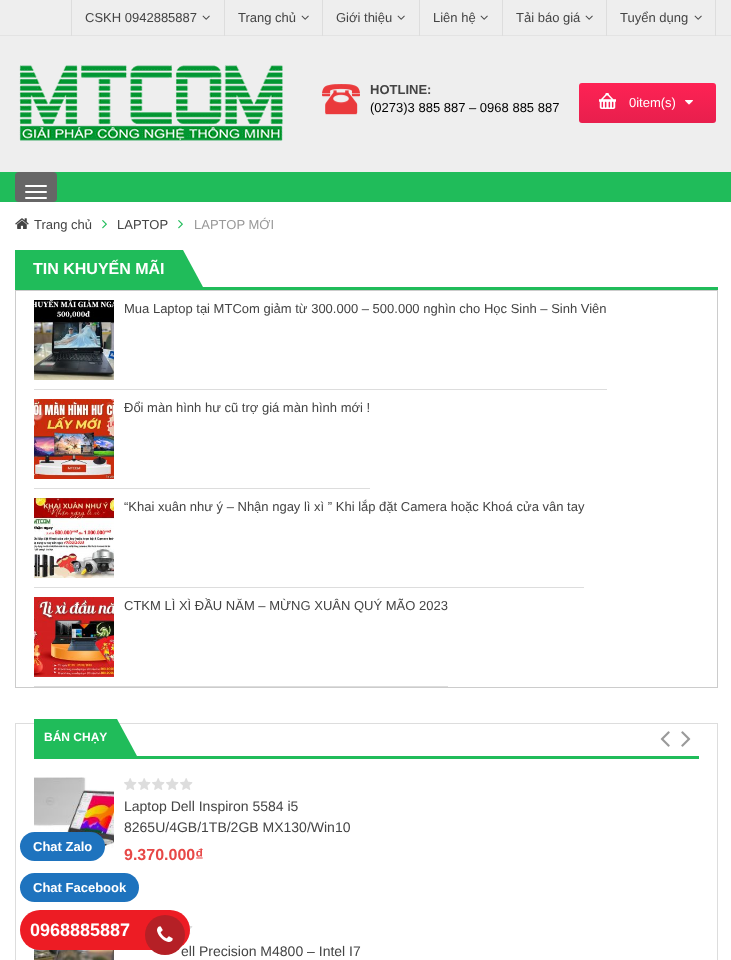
(async () => {
  const canvas = document.querySelector("canvas");
  canvas.width = 731;
  canvas.height = 960;
  const ctx = canvas.getContext("2d");
  ctx.miterLimit = 4;
  ctx.fontKerning = "normal";
  async function loadImage(src) {
    const img = new Image();
    img.src = src;
    await img.decode();
    return img;
  }
  let gradient, path;

  ctx.fillStyle = "#ffffff";
  ctx.fillRect(0, 0, 731, 960);
  for (const [x, y, w, h, color] of [
    [0, 0, 731, 172, "#eeeeee"],
    [0, 35, 731, 1, "#e3e3e3"],
    [224, 0, 1, 36, "#dddddd"],
    [71, 0, 1, 36, "#dddddd"],
  ]) {
    ctx.fillStyle = color;
    ctx.fillRect(x, y, w, h);
  }
  ctx.drawImage(await loadImage("img/1.png"), 202, 15, 8, 5);
  ctx.fillRect(322, 0, 1, 36);
  ctx.drawImage(await loadImage("img/1.png"), 301, 15, 8, 5);
  ctx.fillRect(419, 0, 1, 36);
  ctx.drawImage(await loadImage("img/1.png"), 397, 15, 8, 5);
  ctx.fillRect(502, 0, 1, 36);
  ctx.drawImage(await loadImage("img/1.png"), 480, 15, 8, 5);
  ctx.fillRect(606, 0, 1, 36);
  ctx.drawImage(await loadImage("img/1.png"), 585, 15, 8, 5);
  ctx.fillRect(715, 0, 1, 36);
  ctx.drawImage(await loadImage("img/1.png"), 694, 15, 8, 5);
  ctx.drawImage(await loadImage("img/2.png"), 19, 65, 264, 76);
  ctx.drawImage(await loadImage("img/3.png"), 322, 84, 38, 31);
  gradient = ctx.createLinearGradient(648, 83, 648, 123);
  gradient.addColorStop(0, "#fe2254");
  gradient.addColorStop(1, "#e81f4d");
  ctx.fillStyle = gradient;
  ctx.beginPath();
  ctx.roundRect(579, 83, 137, 40, 3);
  ctx.fill();
  ctx.drawImage(await loadImage("img/4.png"), 599, 93, 17, 16);
  ctx.drawImage(await loadImage("img/5.png"), 685, 100, 8, 5);
  ctx.fillStyle = "#20bc5a";
  ctx.fillRect(0, 172, 731, 30);
  ctx.fillStyle = "#666666";
  ctx.beginPath();
  ctx.roundRect(15, 172, 42, 30, 4);
  ctx.fill();
  ctx.fillStyle = "#ffffff";
  ctx.beginPath();
  ctx.roundRect(25, 185, 22, 2, 1);
  ctx.fill();
  ctx.beginPath();
  ctx.roundRect(25, 191, 22, 2, 1);
  ctx.fill();
  ctx.beginPath();
  ctx.roundRect(25, 197, 22, 2, 1);
  ctx.fill();
  ctx.drawImage(await loadImage("img/6.png"), 15, 218, 14, 11);
  ctx.drawImage(await loadImage("img/7.png"), 102, 220, 5, 9);
  ctx.drawImage(await loadImage("img/7.png"), 178, 220, 5, 9);
  ctx.fillStyle = "#20bc5a";
  ctx.fillRect(15, 287, 703, 3);
  ctx.fillRect(15, 250, 168, 37);
  path = new Path2D("M203 287H183V250Z");
  ctx.fill(path);
  ctx.strokeStyle = "#cccccc";
  ctx.strokeRect(15.5, 290.5, 702, 397);
  ctx.fillStyle = "#dddddd";
  ctx.fillRect(34, 389, 573, 1);
  ctx.drawImage(await loadImage("img/8.png"), 34, 300, 80, 80);
  ctx.fillRect(34, 488, 336, 1);
  ctx.drawImage(await loadImage("img/9.png"), 34, 399, 80, 80);
  ctx.fillRect(34, 587, 550, 1);
  ctx.drawImage(await loadImage("img/10.png"), 34, 498, 80, 80);
  ctx.fillRect(34, 686, 414, 1);
  ctx.drawImage(await loadImage("img/11.png"), 34, 597, 80, 80);
  ctx.strokeStyle = "#dddddd";
  ctx.strokeRect(15.5, 723.5, 702, 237);
  ctx.fillStyle = "#20bc5a";
  ctx.fillRect(34, 756, 665, 3);
  ctx.fillRect(34, 719, 83, 37);
  path = new Path2D("M137 756H117V719Z");
  ctx.fill(path);
  ctx.drawImage(await loadImage("img/12.png"), 660, 731, 10, 16);
  ctx.drawImage(await loadImage("img/13.png"), 681, 731, 10, 16);
  ctx.drawImage(await loadImage("img/14.png"), 34, 777, 80, 80);
  ctx.drawImage(await loadImage("img/15.png"), 124, 778, 69, 12);
  ctx.drawImage(await loadImage("img/16.png"), 34, 949, 80, 11);
  ctx.drawImage(await loadImage("img/17.png"), 189, 925, 4, 9);
  ctx.fillStyle = "#1e73be";
  ctx.beginPath();
  ctx.roundRect(20, 832, 85, 29, 14.5);
  ctx.fill();
  ctx.beginPath();
  ctx.roundRect(20, 873, 119, 29, 14.5);
  ctx.fill();
  ctx.font = "13px Liberation Sans";
  ctx.fillStyle = "#444444";
  for (const [text, x, y] of [
    ["CSKH 0942885887", 85, 22],
    ["Trang chủ", 238, 22],
    ["Giới thiệu", 336, 22],
    ["Liên hệ", 433, 22],
    ["Tải báo giá", 516, 22],
    ["Tuyển dụng", 620, 22],
  ]) {
    ctx.fillText(text, x, y);
  }
  ctx.font = "bold 13px Liberation Sans";
  ctx.fillText("HOTLINE:", 370, 94);
  ctx.font = "13px Liberation Sans";
  ctx.fillStyle = "#000000";
  ctx.fillText("(0273)3 885 887 – 0968 885 887", 370, 112);
  ctx.fillStyle = "#ffffff";
  ctx.fillText("0item(s)", 629, 107);
  ctx.fillStyle = "#444444";
  ctx.fillText("Trang chủ", 34, 229);
  ctx.fillText("LAPTOP", 117, 229);
  ctx.fillStyle = "#999999";
  ctx.fillText("LAPTOP MỚI", 194, 229);
  ctx.font = "bold 16px Liberation Sans";
  ctx.fillStyle = "#ffffff";
  ctx.fillText("TIN KHUYẾN MÃI", 33, 274);
  ctx.font = "13px Liberation Sans";
  ctx.fillStyle = "#444444";
  for (const [text, x, y] of [
    ["Mua Laptop tại MTCom giảm từ 300.000 – 500.000 nghìn cho Học Sinh – Sinh Viên", 124, 313],
    ["Đổi màn hình hư cũ trợ giá màn hình mới !", 124, 412],
    ["“Khai xuân như ý – Nhận ngay lì xì ” Khi lắp đặt Camera hoặc Khoá cửa vân tay", 124, 511],
    ["CTKM LÌ XÌ ĐẦU NĂM – MỪNG XUÂN QUÝ MÃO 2023", 124, 610],
  ]) {
    ctx.fillText(text, x, y);
  }
  ctx.font = "bold 12px Liberation Sans";
  ctx.fillStyle = "#ffffff";
  ctx.fillText("BÁN CHẠY", 44, 741);
  ctx.font = "14px Liberation Sans";
  ctx.fillStyle = "#444444";
  ctx.fillText("Laptop Dell Inspiron 5584 i5", 124, 811);
  ctx.fillText("8265U/4GB/1TB/2GB MX130/Win10", 124, 832);
  ctx.font = "bold 16px Liberation Sans";
  ctx.fillStyle = "#e74847";
  ctx.fillText("9.370.000₫", 124, 860);
  ctx.font = "14px Liberation Sans";
  ctx.fillStyle = "#444444";
  ctx.fillText("ell Precision M4800 – Intel I7", 181, 956);
  ctx.font = "bold 13px Liberation Sans";
  ctx.fillStyle = "#ffffff";
  ctx.fillText("Chat Zalo", 33, 851);
  ctx.fillText("Chat Facebook", 33, 892);
  ctx.fillStyle = "#ed1c24";
  ctx.beginPath();
  ctx.roundRect(20, 910, 170, 40, 20);
  ctx.fill();
  ctx.font = "bold 18px Liberation Sans";
  ctx.fillStyle = "#ffffff";
  ctx.fillText("0968885887", 30, 936);
  ctx.fillStyle = "#b52026";
  ctx.beginPath();
  ctx.arc(165, 935, 20, 0, Math.PI * 2);
  ctx.fill();
  ctx.drawImage(await loadImage("img/18.png"), 157, 926, 16, 16);
})();
